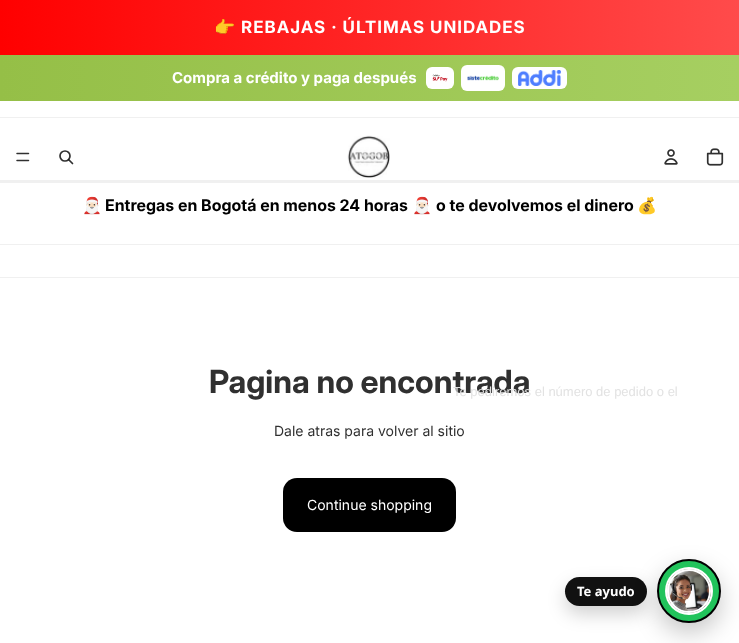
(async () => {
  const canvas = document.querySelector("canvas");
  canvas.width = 739;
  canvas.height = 643;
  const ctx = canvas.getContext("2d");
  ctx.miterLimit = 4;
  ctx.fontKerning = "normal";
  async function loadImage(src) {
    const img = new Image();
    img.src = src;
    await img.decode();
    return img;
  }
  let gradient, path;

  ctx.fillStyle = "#ffffff";
  ctx.fillRect(0, 0, 739, 643);
  gradient = ctx.createLinearGradient(0, 28, 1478, 27);
  gradient.addColorStop(0, "#ff0000");
  gradient.addColorStop(0.5, "#ff4b4b");
  gradient.addColorStop(1, "#ff0000");
  ctx.fillStyle = gradient;
  ctx.fillRect(0, 0, 739, 55);
  gradient = ctx.createLinearGradient(0, 78, 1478, 78);
  gradient.addColorStop(0, "#95bf47");
  gradient.addColorStop(0.5, "#a6cf61");
  gradient.addColorStop(1, "#95bf47");
  ctx.fillStyle = gradient;
  ctx.fillRect(0, 55, 739, 46);
  ctx.fillStyle = "#ffffff";
  ctx.beginPath();
  ctx.roundRect(426, 67, 28, 22, 6);
  ctx.fill();
  ctx.drawImage(await loadImage("img/1.png"), 432, 74, 16, 8);
  ctx.beginPath();
  ctx.roundRect(461, 65, 44, 26, 6);
  ctx.fill();
  ctx.drawImage(await loadImage("img/2.png"), 467, 75, 32, 6);
  ctx.beginPath();
  ctx.roundRect(512, 67, 55, 22, 6);
  ctx.fill();
  ctx.drawImage(await loadImage("img/3.png"), 518, 70, 43, 16);
  ctx.fillStyle = "#f0f0f0";
  path = new Path2D("M739 117V118L738 117Z");
  ctx.fill(path);
  ctx.fillStyle = "rgba(0, 0, 0, 0.06)";
  path = new Path2D("M739 118H0V117H738Z");
  ctx.fill(path);
  ctx.fillStyle = "#f0f0f0";
  ctx.fillRect(0, 180, 739, 3);
  path = new Path2D("M17 153.5H28.5M17 160.5H28.5");
  ctx.strokeStyle = "#303030";
  ctx.lineWidth = 1.5;
  ctx.lineCap = "round";
  ctx.stroke(path);
  ctx.beginPath();
  ctx.arc(65, 156, 5, 0, Math.PI * 2);
  ctx.lineWidth = 1.7;
  ctx.stroke();
  path = new Path2D("M69 160L72.5 163.5");
  ctx.strokeStyle = "rgba(0, 0, 0, 0.81)";
  ctx.lineJoin = "round";
  ctx.stroke(path);
  ctx.drawImage(await loadImage("img/4.png"), 347, 135, 43, 43);
  ctx.drawImage(await loadImage("img/5.png"), 664, 149, 14, 16);
  ctx.drawImage(await loadImage("img/6.png"), 706, 148, 18, 18);
  path = new Path2D("M739 244V245L738 244Z");
  ctx.fill(path);
  ctx.fillStyle = "rgba(0, 0, 0, 0.06)";
  path = new Path2D("M739 245H0V244H738Z");
  ctx.fill(path);
  ctx.fillStyle = "#f0f0f0";
  path = new Path2D("M739 277V278L738 277Z");
  ctx.fill(path);
  ctx.fillStyle = "rgba(0, 0, 0, 0.06)";
  path = new Path2D("M739 278H0V277H738Z");
  ctx.fill(path);
  ctx.fillStyle = "#000000";
  ctx.beginPath();
  ctx.roundRect(283, 478, 173, 54, 14);
  ctx.fill();
  ctx.fillStyle = "rgba(0, 0, 0, 0.18)";
  ctx.filter = "blur(9px)";
  ctx.beginPath();
  ctx.roundRect(565, 585, 82, 29, 14.5);
  ctx.fill();
  ctx.filter = "none";
  ctx.fillStyle = "#111111";
  ctx.beginPath();
  ctx.roundRect(565, 577, 82, 29, 14.5);
  ctx.fill();
  ctx.fillStyle = "rgba(0, 0, 0, 0.22)";
  ctx.filter = "blur(12px)";
  ctx.beginPath();
  ctx.roundRect(657, 569, 64, 64, 32);
  ctx.fill();
  ctx.filter = "none";
  ctx.fillStyle = "#21c35b";
  ctx.beginPath();
  ctx.arc(689, 591, 31, 0, Math.PI * 2);
  ctx.fill();
  ctx.strokeStyle = "#000000";
  ctx.lineWidth = 2;
  ctx.stroke();
  ctx.fillStyle = "#ffffff";
  ctx.beginPath();
  ctx.arc(689, 591, 24, 0, Math.PI * 2);
  ctx.fill();
  ctx.drawImage(await loadImage("img/7.png"), 667, 569, 44, 44);
  ctx.beginPath();
  ctx.arc(689, 591, 21, 0, Math.PI * 2);
  ctx.strokeStyle = "#ffffff";
  ctx.stroke();
  ctx.letterSpacing = "1px";
  ctx.font = "bold 17px Noto Color Emoji";
  ctx.fillText("👉", 214, 33);
  ctx.font = "bold 17px 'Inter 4'";
  ctx.fillText("REBAJAS · ÚLTIMAS UNIDADES", 241, 33);
  ctx.letterSpacing = "0px";
  ctx.font = "bold 15px Inter";
  ctx.fillText("Compra a crédito y paga después", 172, 83);
  ctx.font = "bold 16px Noto Color Emoji";
  ctx.fillStyle = "#000000";
  ctx.fillText("🎅🏻", 82, 211);
  ctx.font = "bold 16px 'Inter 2'";
  ctx.fillText("Entregas en Bogotá en menos 24 horas", 105, 211);
  ctx.font = "bold 16px Noto Color Emoji";
  ctx.fillText("🎅🏻", 412, 211);
  ctx.font = "bold 16px 'Inter 2'";
  ctx.fillText("o te devolvemos el dinero", 436, 211);
  ctx.font = "bold 16px Noto Color Emoji";
  ctx.fillText("💰", 637, 211);
  ctx.font = "bold 32px 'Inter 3'";
  ctx.fillStyle = "#303030";
  ctx.fillText("Pagina no encontrada", 209, 393);
  ctx.font = "14px Inter";
  ctx.fillText("Dale atras para volver al sitio", 274, 436);
  ctx.fillStyle = "#ffffff";
  ctx.fillText("Continue shopping", 307, 510);
  ctx.font = "13px Liberation Sans";
  ctx.fillStyle = "#e2e2e2";
  ctx.fillText("Te pediremos el número de pedido o el", 453, 396);
  ctx.font = "bold 13px Noto Sans";
  ctx.fillStyle = "#ffffff";
  ctx.fillText("Te ayudo", 577, 596);
})();
